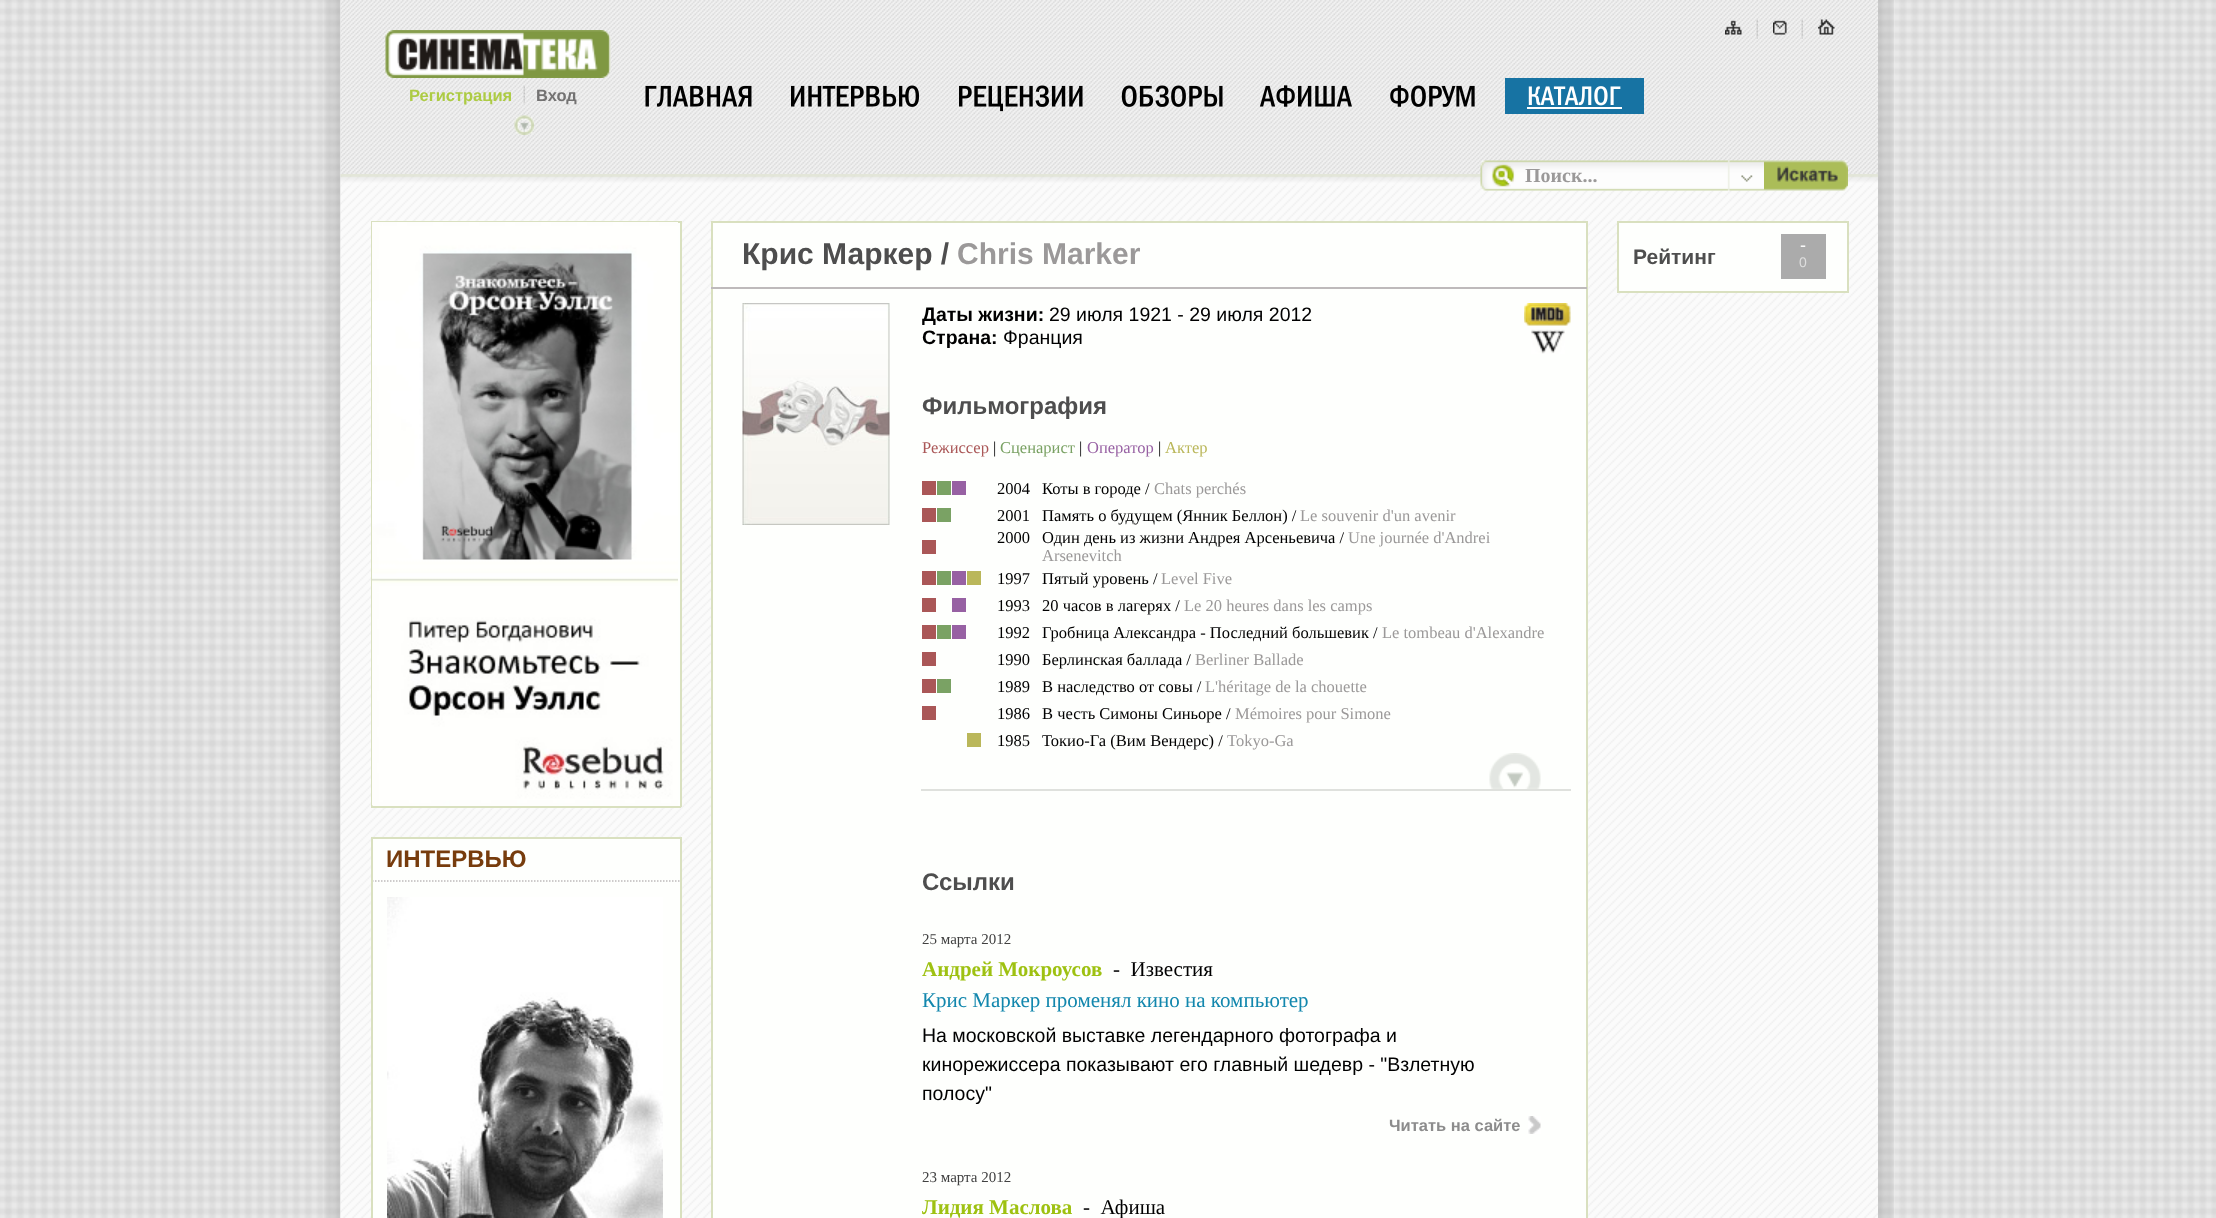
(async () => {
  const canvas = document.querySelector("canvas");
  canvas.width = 2216;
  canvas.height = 1218;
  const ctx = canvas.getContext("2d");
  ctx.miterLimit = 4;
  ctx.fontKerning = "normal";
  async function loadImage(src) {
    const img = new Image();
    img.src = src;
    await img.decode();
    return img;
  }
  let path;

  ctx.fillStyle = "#ffffff";
  ctx.fillRect(0, 0, 2216, 1218);
  ctx.drawImage(await loadImage("img/1.png"), 0, 0, 324, 1218);
  ctx.drawImage(await loadImage("img/2.png"), 324, 0, 17, 1218);
  ctx.drawImage(await loadImage("img/3.png"), 340, 0, 1538, 174);
  ctx.drawImage(await loadImage("img/4.png"), 385, 30, 226, 48);
  ctx.drawImage(await loadImage("img/5.png"), 1725, 20, 17, 15);
  ctx.drawImage(await loadImage("img/6.png"), 1756, 19, 2, 20);
  ctx.drawImage(await loadImage("img/7.png"), 1773, 20, 14, 15);
  ctx.drawImage(await loadImage("img/6.png"), 1801, 19, 2, 20);
  ctx.drawImage(await loadImage("img/8.png"), 1818, 19, 17, 16);
  ctx.drawImage(await loadImage("img/9.png"), 523, 85, 2, 19);
  ctx.drawImage(await loadImage("img/10.png"), 645, 85, 107, 22);
  ctx.drawImage(await loadImage("img/11.png"), 791, 85, 129, 22);
  ctx.drawImage(await loadImage("img/12.png"), 959, 85, 124, 27);
  ctx.drawImage(await loadImage("img/13.png"), 1121, 85, 102, 22);
  ctx.drawImage(await loadImage("img/14.png"), 1259, 85, 93, 22);
  ctx.drawImage(await loadImage("img/15.png"), 1390, 85, 85, 22);
  ctx.fillStyle = "#1773a3";
  ctx.fillRect(1505, 78, 139, 36);
  ctx.drawImage(await loadImage("img/16.png"), 1528, 86, 93, 20);
  ctx.fillStyle = "#ffffff";
  ctx.fillRect(1527, 107, 95, 2);
  ctx.drawImage(await loadImage("img/17.png"), 514, 115, 20, 20);
  ctx.drawImage(await loadImage("img/18.png"), 340, 186, 1538, 1032);
  ctx.drawImage(await loadImage("img/28.png"), 340, 174, 1538, 12);
  ctx.drawImage(await loadImage("img/19.png"), 1480, 160, 284, 31);
  ctx.drawImage(await loadImage("img/20.png"), 1764, 160, 84, 31);
  for (const [x, y, w, h, color] of [
    [713, 223, 873, 995, "#fefffd"],
    [711, 221, 876, 2, "#d9e0bf"],
    [1586, 221, 2, 997, "#d9e0bf"],
    [711, 221, 2, 997, "#d9e0bf"],
    [711, 287, 876, 2, "#bebabb"],
  ]) {
    ctx.fillStyle = color;
    ctx.fillRect(x, y, w, h);
  }
  ctx.drawImage(await loadImage("img/21.png"), 742, 303, 148, 222);
  ctx.drawImage(await loadImage("img/22.png"), 1524, 303, 47, 23);
  ctx.drawImage(await loadImage("img/23.png"), 1531, 329, 34, 25);
  for (const [x, y, w, h, color] of [
    [922, 481, 14, 14, "#aa5757"],
    [937, 481, 14, 14, "#7aa264"],
    [952, 481, 14, 14, "#9761a3"],
    [922, 508, 14, 14, "#aa5757"],
    [937, 508, 14, 14, "#7aa264"],
    [922, 540, 14, 14, "#aa5757"],
    [922, 571, 14, 14, "#aa5757"],
    [937, 571, 14, 14, "#7aa264"],
    [952, 571, 14, 14, "#9761a3"],
    [967, 571, 14, 14, "#bab75a"],
    [922, 598, 14, 14, "#aa5757"],
    [952, 598, 14, 14, "#9761a3"],
    [922, 625, 14, 14, "#aa5757"],
    [937, 625, 14, 14, "#7aa264"],
    [952, 625, 14, 14, "#9761a3"],
    [922, 652, 14, 14, "#aa5757"],
    [922, 679, 14, 14, "#aa5757"],
    [937, 679, 14, 14, "#7aa264"],
    [922, 706, 14, 14, "#aa5757"],
    [967, 733, 14, 14, "#bab75a"],
    [921, 789, 650, 2, "#dfe1dd"],
  ]) {
    ctx.fillStyle = color;
    ctx.fillRect(x, y, w, h);
  }
  ctx.drawImage(await loadImage("img/24.png"), 1489, 753, 52, 36);
  ctx.drawImage(await loadImage("img/25.png"), 1528, 1116, 13, 18);
  for (const [x, y, w, h, color] of [
    [1619, 223, 228, 68, "#fefffd"],
    [1617, 221, 231, 2, "#d9e0bf"],
    [1847, 221, 2, 72, "#d9e0bf"],
    [1617, 291, 231, 2, "#d9e0bf"],
    [1617, 221, 2, 72, "#d9e0bf"],
    [1781, 234, 45, 45, "#ababab"],
    [373, 223, 307, 583, "#fefffd"],
    [371, 221, 310, 2, "#d9e0bf"],
    [680, 221, 2, 586, "#d9e0bf"],
    [371, 806, 310, 2, "#d9e0bf"],
    [371, 221, 2, 586, "#d9e0bf"],
  ]) {
    ctx.fillStyle = color;
    ctx.fillRect(x, y, w, h);
  }
  ctx.drawImage(await loadImage("img/26.png"), 372, 222, 306, 584);
  for (const [x, y, w, h, color] of [
    [373, 839, 307, 379, "#fefffd"],
    [371, 837, 310, 2, "#d9e0bf"],
    [680, 837, 2, 381, "#d9e0bf"],
  ]) {
    ctx.fillStyle = color;
    ctx.fillRect(x, y, w, h);
  }
  path = new Path2D("M372 881H679.5");
  ctx.strokeStyle = "#bebabb";
  ctx.lineWidth = 1.5;
  ctx.setLineDash([1.5, 1.5]);
  ctx.stroke(path);
  ctx.fillRect(371, 837, 2, 381);
  ctx.drawImage(await loadImage("img/27.png"), 387, 897, 276, 321);
  ctx.drawImage(await loadImage("img/29.png"), 1878, 0, 17, 1218);
  ctx.drawImage(await loadImage("img/30.png"), 1894, 0, 322, 1218);
  ctx.font = "bold 16.5px Liberation Sans";
  ctx.fillStyle = "#adcb44";
  ctx.fillText("Регистрация", 409, 101);
  ctx.fillStyle = "#737272";
  ctx.fillText("Вход", 536, 101);
  ctx.font = "bold 20px Liberation Serif";
  ctx.fillStyle = "#9b9999";
  ctx.fillText("Поиск...", 1525, 182);
  ctx.font = "bold 30px Liberation Sans";
  ctx.fillStyle = "#4e4e4e";
  ctx.fillText("Крис Маркер /", 742, 264);
  ctx.fillStyle = "#9b9999";
  ctx.fillText("Chris Marker", 957, 264);
  ctx.font = "bold 19.5px Liberation Sans";
  ctx.fillStyle = "#000000";
  ctx.fillText("Даты жизни:", 922, 321);
  ctx.font = "19.5px Liberation Sans";
  ctx.fillText("29 июля 1921 - 29 июля 2012", 1049, 321);
  ctx.font = "bold 19.5px Liberation Sans";
  ctx.fillText("Страна:", 922, 344);
  ctx.font = "19.5px Liberation Sans";
  ctx.fillText("Франция", 1003, 344);
  ctx.font = "bold 24px Liberation Sans";
  ctx.fillStyle = "#4e4e4e";
  ctx.fillText("Фильмография", 922, 414);
  ctx.font = "16.5px Liberation Serif";
  ctx.fillStyle = "#aa5757";
  ctx.fillText("Режиссер", 922, 453);
  ctx.fillStyle = "#000000";
  ctx.fillText("|", 993, 453);
  ctx.fillStyle = "#7aa264";
  ctx.fillText("Cценарист", 1000, 453);
  ctx.fillStyle = "#000000";
  ctx.fillText("|", 1079, 453);
  ctx.fillStyle = "#9761a3";
  ctx.fillText("Оператор", 1087, 453);
  ctx.fillStyle = "#000000";
  ctx.fillText("|", 1158, 453);
  ctx.fillStyle = "#bab75a";
  ctx.fillText("Актер", 1165, 453);
  ctx.fillStyle = "#000000";
  ctx.fillText("2004", 997, 494);
  ctx.fillText("Коты в городе /", 1042, 494);
  ctx.fillStyle = "#9b9999";
  ctx.fillText("Chats perchés", 1154, 494);
  ctx.fillStyle = "#000000";
  ctx.fillText("2001", 997, 521);
  ctx.fillText("Память о будущем (Янник Беллон) /", 1042, 521);
  ctx.fillStyle = "#9b9999";
  ctx.fillText("Le souvenir d'un avenir", 1300, 521);
  ctx.fillStyle = "#000000";
  ctx.fillText("2000", 997, 543);
  ctx.fillText("Один день из жизни Андрея Арсеньевича /", 1042, 543);
  ctx.fillStyle = "#9b9999";
  ctx.fillText("Une journée d'Andrei", 1348, 543);
  ctx.fillText("Arsenevitch", 1042, 561);
  ctx.fillStyle = "#000000";
  ctx.fillText("1997", 997, 584);
  ctx.fillText("Пятый уровень /", 1042, 584);
  ctx.fillStyle = "#9b9999";
  ctx.fillText("Level Five", 1161, 584);
  ctx.fillStyle = "#000000";
  ctx.fillText("1993", 997, 611);
  ctx.fillText("20 часов в лагерях /", 1042, 611);
  ctx.fillStyle = "#9b9999";
  ctx.fillText("Le 20 heures dans les camps", 1184, 611);
  ctx.fillStyle = "#000000";
  ctx.fillText("1992", 997, 638);
  ctx.fillText("Гробница Александра - Последний большевик /", 1042, 638);
  ctx.fillStyle = "#9b9999";
  ctx.fillText("Le tombeau d'Alexandre", 1382, 638);
  ctx.fillStyle = "#000000";
  ctx.fillText("1990", 997, 665);
  ctx.fillText("Берлинская баллада /", 1042, 665);
  ctx.fillStyle = "#9b9999";
  ctx.fillText("Berliner Ballade", 1195, 665);
  ctx.fillStyle = "#000000";
  ctx.fillText("1989", 997, 692);
  ctx.fillText("В наследство от совы /", 1042, 692);
  ctx.fillStyle = "#9b9999";
  ctx.fillText("L'héritage de la chouette", 1205, 692);
  ctx.fillStyle = "#000000";
  ctx.fillText("1986", 997, 719);
  ctx.fillText("В честь Симоны Синьоре /", 1042, 719);
  ctx.fillStyle = "#9b9999";
  ctx.fillText("Mémoires pour Simone", 1235, 719);
  ctx.fillStyle = "#000000";
  ctx.fillText("1985", 997, 746);
  ctx.fillText("Токио-Га (Вим Вендерс) /", 1042, 746);
  ctx.fillStyle = "#9b9999";
  ctx.fillText("Tokyo-Ga", 1227, 746);
  ctx.font = "bold 24px Liberation Sans";
  ctx.fillStyle = "#4e4e4e";
  ctx.fillText("Ссылки", 922, 890);
  ctx.font = "15px Liberation Serif";
  ctx.fillStyle = "#414141";
  ctx.fillText("25 марта 2012", 922, 944);
  ctx.font = "bold 21px Liberation Serif";
  ctx.fillStyle = "#9ec111";
  ctx.fillText("Андрей Мокроусов", 922, 976);
  ctx.font = "21px Liberation Serif";
  ctx.fillStyle = "#000000";
  ctx.fillText("-  Известия", 1113, 976);
  ctx.fillStyle = "#1287ad";
  ctx.fillText("Крис Маркер променял кино на компьютер", 922, 1007);
  ctx.font = "19.5px Liberation Sans";
  ctx.fillStyle = "#000000";
  for (const [text, x, y] of [
    ["На московской выставке легендарного фотографа и", 922, 1042],
    ["кинорежиссера показывают его главный шедевр - \"Взлетную", 922, 1071],
    ["полосу\"", 922, 1100],
  ]) {
    ctx.fillText(text, x, y);
  }
  ctx.font = "bold 16.5px Liberation Sans";
  ctx.fillStyle = "#8c8c8c";
  ctx.fillText("Читать на сайте", 1389, 1131);
  ctx.font = "15px Liberation Serif";
  ctx.fillStyle = "#414141";
  ctx.fillText("23 марта 2012", 922, 1182);
  ctx.font = "bold 21px Liberation Serif";
  ctx.fillStyle = "#9ec111";
  ctx.fillText("Лидия Маслова", 922, 1214);
  ctx.font = "21px Liberation Serif";
  ctx.fillStyle = "#000000";
  ctx.fillText("-  Афиша", 1083, 1214);
  ctx.font = "bold 21px Liberation Sans";
  ctx.fillStyle = "#4e4e4e";
  ctx.fillText("Рейтинг", 1633, 264);
  ctx.font = "18px Liberation Sans";
  ctx.fillStyle = "#ffffff";
  ctx.fillText("-", 1800, 251);
  ctx.font = "14px Liberation Sans";
  ctx.fillStyle = "#dedede";
  ctx.fillText("0", 1799, 267);
  ctx.font = "bold 24px Liberation Sans";
  ctx.fillStyle = "#773c0d";
  ctx.fillText("ИНТЕРВЬЮ", 386, 867);
})();
